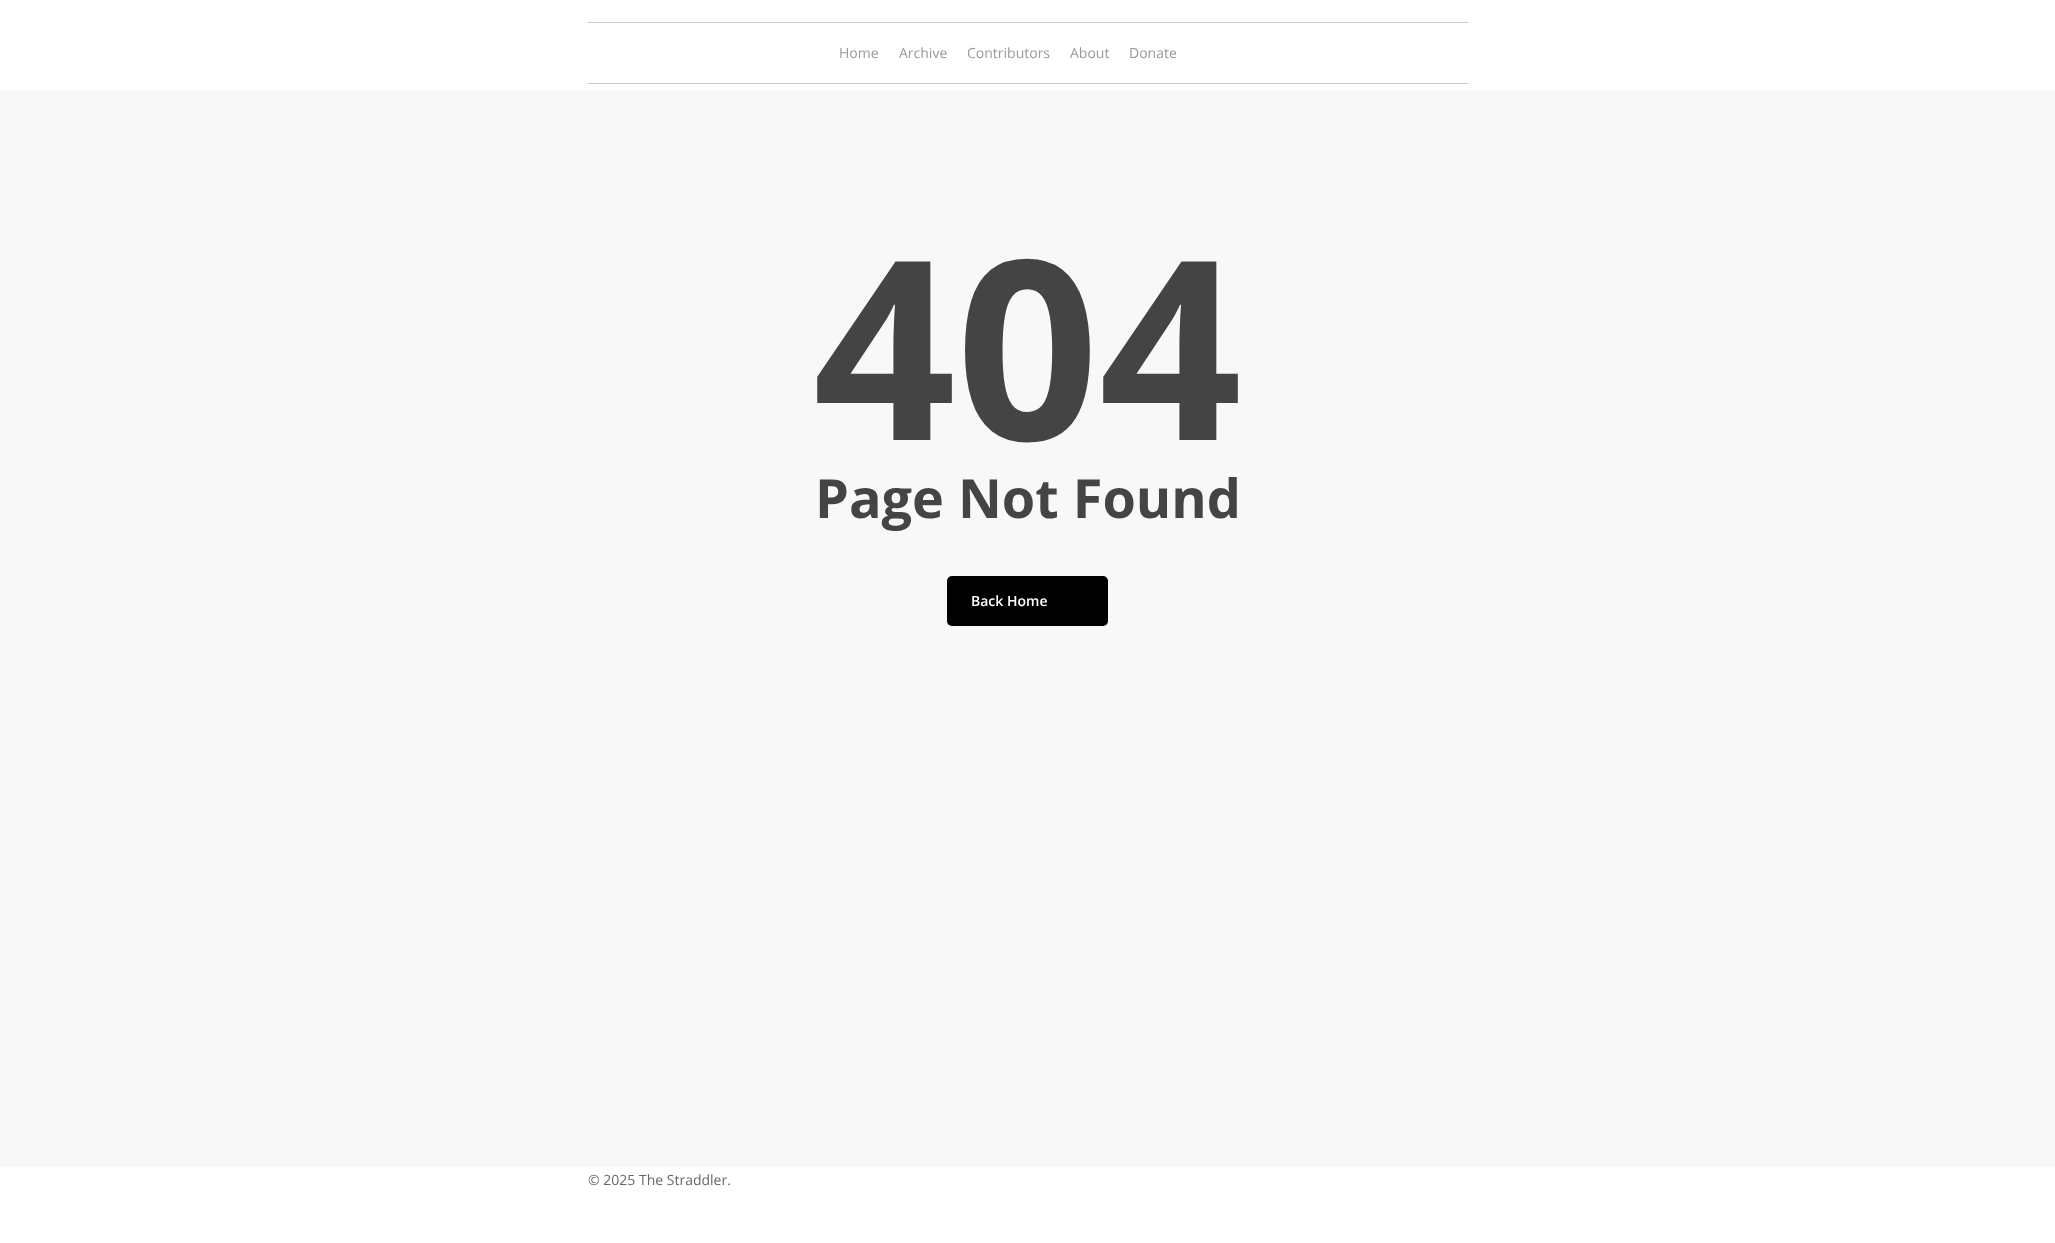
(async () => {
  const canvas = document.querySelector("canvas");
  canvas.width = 2055;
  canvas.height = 1243;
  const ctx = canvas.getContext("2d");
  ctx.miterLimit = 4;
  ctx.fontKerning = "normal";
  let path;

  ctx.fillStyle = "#ffffff";
  ctx.fillRect(0, 0, 2055, 1243);
  for (const [x, y, w, h, color] of [
    [588, 22, 880, 1, "#cccccc"],
    [588, 83, 880, 1, "#cccccc"],
    [0, 90, 2055, 1077, "#f8f8f8"],
  ]) {
    ctx.fillStyle = color;
    ctx.fillRect(x, y, w, h);
  }
  ctx.fillStyle = "#000000";
  ctx.beginPath();
  ctx.roundRect(947, 576, 161, 50, 5);
  ctx.fill();
  ctx.fillStyle = "rgba(0, 0, 0, 0.1)";
  path = new Path2D("M947 618V621C947 624 949 626 952 626H1103C1106 626 1108 624 1108 621V618C1108 621 1106 623 1103 623H952C949 623 947 621 947 618Z");
  ctx.fill(path);
  ctx.font = "14px Open Sans";
  ctx.fillStyle = "#999999";
  for (const [text, x, y] of [
    ["Home", 839, 58],
    ["Archive", 899, 58],
    ["Contributors", 967, 58],
    ["About", 1070, 58],
    ["Donate", 1129, 58],
  ]) {
    ctx.fillText(text, x, y);
  }
  ctx.font = "bold 250px Open Sans";
  ctx.fillStyle = "#444444";
  ctx.fillText("404", 813, 440);
  ctx.font = "bold 54px Open Sans";
  ctx.fillText("Page Not Found", 815, 518);
  ctx.font = "600 14px Open Sans";
  ctx.fillStyle = "#ffffff";
  ctx.fillText("Back Home", 971, 606);
  ctx.font = "14px Open Sans";
  ctx.fillStyle = "#676767";
  ctx.fillText("© 2025 The Straddler.", 588, 1185);
})();
